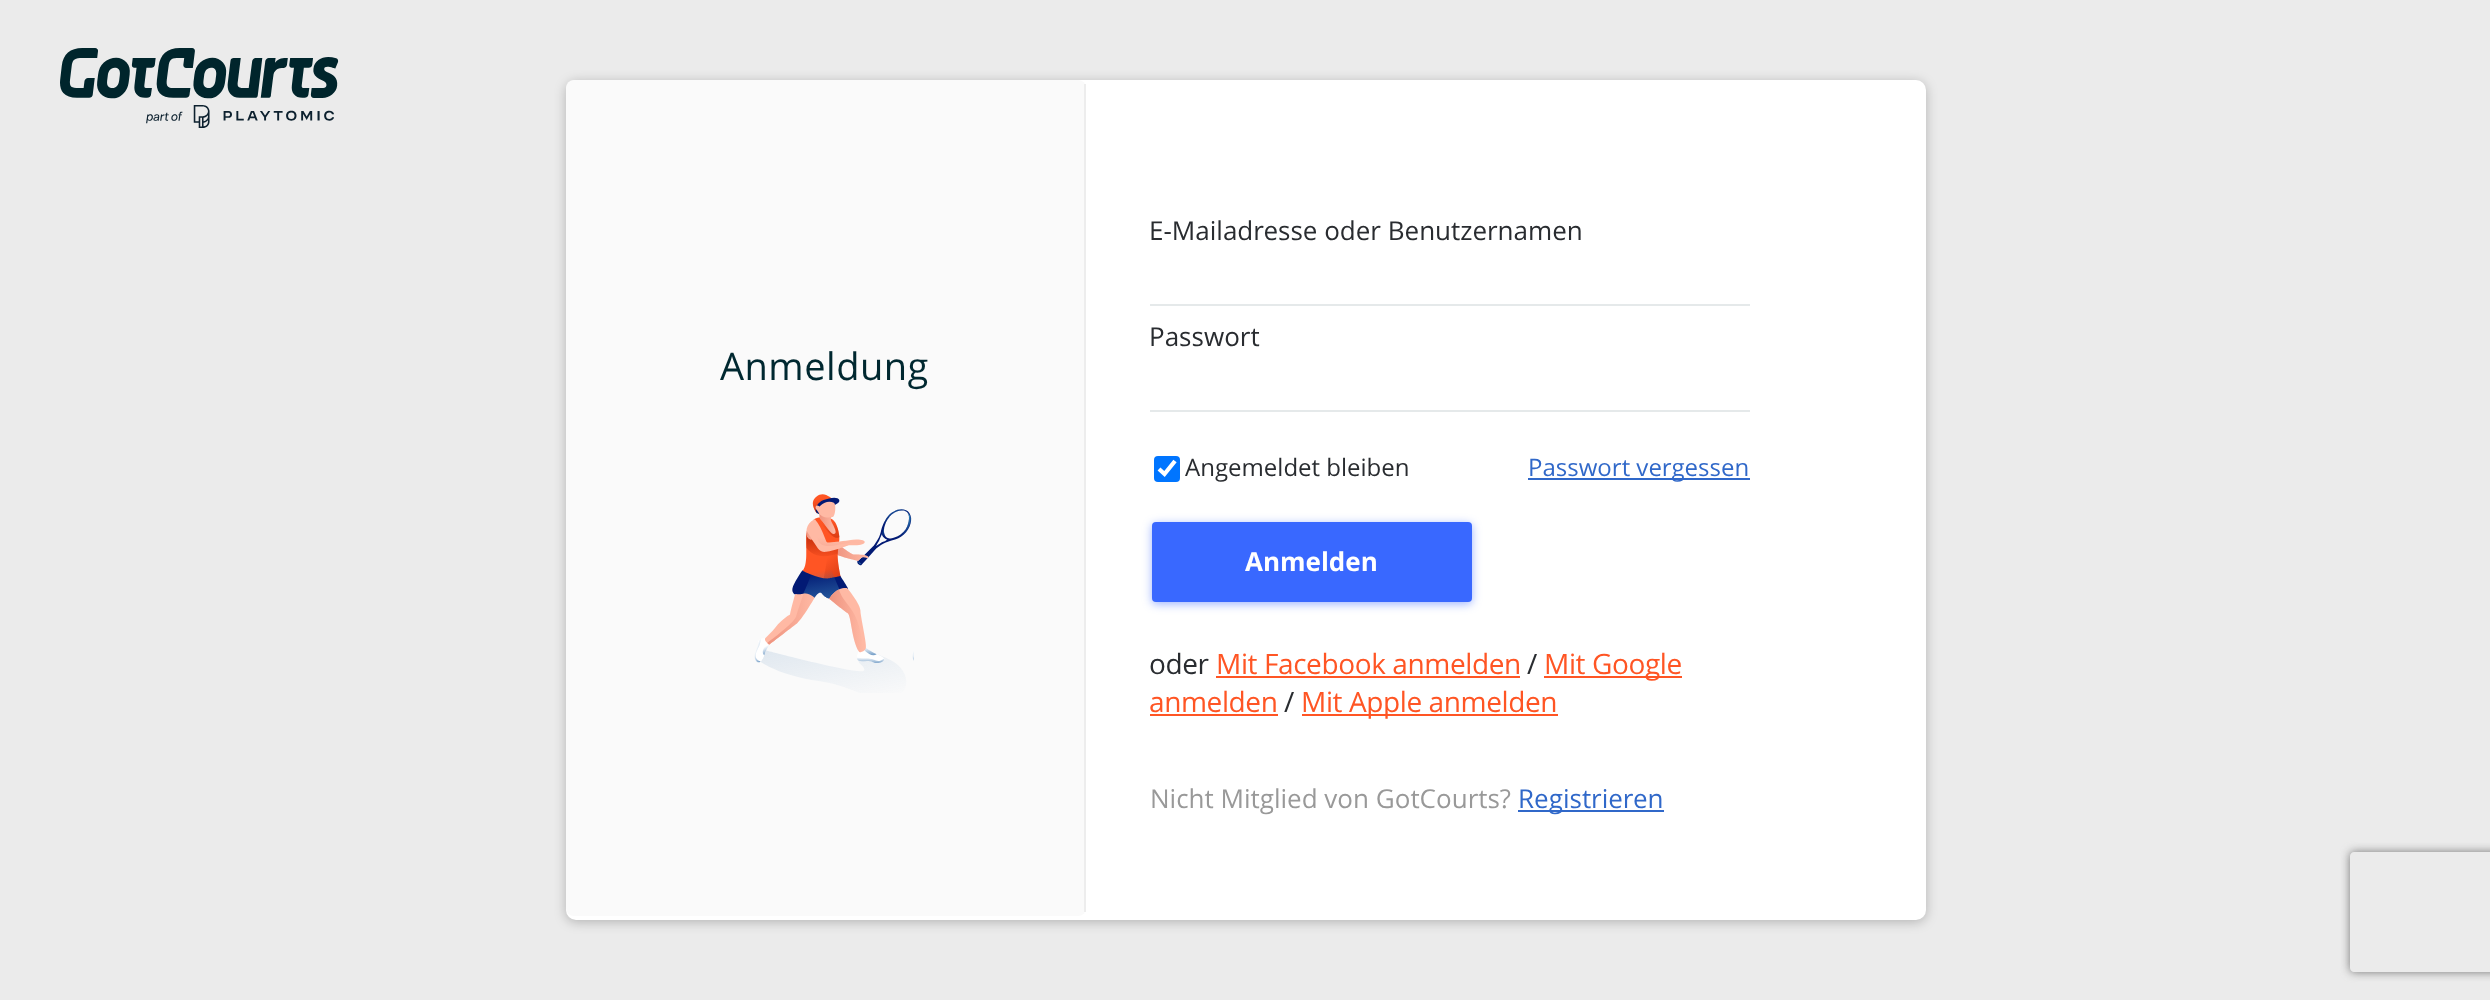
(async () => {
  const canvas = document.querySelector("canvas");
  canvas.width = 2490;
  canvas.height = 1000;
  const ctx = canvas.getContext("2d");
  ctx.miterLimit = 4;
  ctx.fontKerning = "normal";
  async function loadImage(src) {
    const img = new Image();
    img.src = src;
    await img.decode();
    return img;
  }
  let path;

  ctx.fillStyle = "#ebebeb";
  ctx.fillRect(0, 0, 2490, 1000);
  ctx.drawImage(await loadImage("img/1.png"), 60, 48, 279, 80);
  ctx.fillStyle = "rgba(0, 0, 0, 0.24)";
  ctx.filter = "blur(6px)";
  ctx.beginPath();
  ctx.roundRect(566, 82, 1360, 840, 10);
  ctx.fill();
  ctx.filter = "none";
  ctx.fillStyle = "#ffffff";
  ctx.beginPath();
  ctx.roundRect(566, 80, 1360, 840, 10);
  ctx.fill();
  ctx.fillStyle = "#e5e9ea";
  ctx.fillRect(1150, 304, 600, 2);
  ctx.fillRect(1150, 410, 600, 2);
  ctx.fillStyle = "#fafafa";
  ctx.beginPath();
  ctx.roundRect(566, 80, 520, 836, 8);
  ctx.fill();
  ctx.fillStyle = "#ededed";
  ctx.fillRect(1084, 84, 2, 828);
  ctx.drawImage(await loadImage("img/2.png"), 754, 494, 160, 199);
  ctx.fillStyle = "#0075ff";
  ctx.beginPath();
  ctx.roundRect(1154, 456, 26, 26, 4);
  ctx.fill();
  path = new Path2D("M1159 469L1164.5 474L1175 461");
  ctx.strokeStyle = "#ffffff";
  ctx.lineWidth = 4.2;
  ctx.stroke(path);
  ctx.fillStyle = "#3068c9";
  ctx.fillRect(1528, 478, 222, 2);
  ctx.fillStyle = "rgba(57, 104, 255, 0.5)";
  ctx.filter = "blur(5px)";
  ctx.beginPath();
  ctx.roundRect(1152, 524, 320, 80, 4);
  ctx.fill();
  ctx.filter = "none";
  ctx.fillStyle = "#3968ff";
  ctx.beginPath();
  ctx.roundRect(1152, 522, 320, 80, 4);
  ctx.fill();
  for (const [x, y, w, h, color] of [
    [1216, 676, 304, 2, "#ff5524"],
    [1544, 676, 138, 2, "#ff5524"],
    [1150, 714, 128, 2, "#ff5524"],
    [1302, 714, 256, 2, "#ff5524"],
    [1518, 810, 146, 2, "#3068c9"],
  ]) {
    ctx.fillStyle = color;
    ctx.fillRect(x, y, w, h);
  }
  ctx.save();
  path = new Path2D("M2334 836H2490V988H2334ZM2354 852H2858C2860 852 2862 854 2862 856V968C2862 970 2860 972 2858 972H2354C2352 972 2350 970 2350 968V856C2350 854 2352 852 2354 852Z");
  ctx.clip(path, "evenodd");
  ctx.fillStyle = "#767676";
  ctx.filter = "blur(5px)";
  ctx.beginPath();
  ctx.roundRect(2350, 852, 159, 120, 4);
  ctx.fill();
  ctx.filter = "none";
  ctx.restore();
  ctx.font = "26px Open Sans";
  ctx.fillStyle = "#292c30";
  ctx.fillText("E-Mailadresse oder Benutzernamen", 1149, 240);
  ctx.fillText("Passwort", 1149, 346);
  ctx.letterSpacing = "0.5px";
  ctx.font = "38px Open Sans";
  ctx.fillStyle = "#002830";
  ctx.fillText("Anmeldung", 720, 380);
  ctx.letterSpacing = "0px";
  ctx.font = "24px Open Sans";
  ctx.fillStyle = "#292c30";
  ctx.fillText("Angemeldet bleiben", 1185, 476);
  ctx.fillStyle = "#3068c9";
  ctx.fillText("Passwort vergessen", 1528, 476);
  ctx.font = "bold 26px Open Sans";
  ctx.fillStyle = "#ffffff";
  ctx.fillText("Anmelden", 1245, 571);
  ctx.letterSpacing = "-0.4px";
  ctx.font = "28px Open Sans";
  ctx.fillStyle = "#292c30";
  ctx.fillText("oder", 1149, 674);
  ctx.fillStyle = "#ff5524";
  ctx.fillText("Mit Facebook anmelden", 1216, 674);
  ctx.fillStyle = "#292c30";
  ctx.fillText("/", 1527, 674);
  ctx.fillStyle = "#ff5524";
  ctx.fillText("Mit Google", 1544, 674);
  ctx.fillText("anmelden", 1149, 712);
  ctx.fillStyle = "#292c30";
  ctx.fillText("/", 1284, 712);
  ctx.fillStyle = "#ff5524";
  ctx.fillText("Mit Apple anmelden", 1301, 712);
  ctx.letterSpacing = "0px";
  ctx.font = "26px Open Sans";
  ctx.fillStyle = "#999999";
  ctx.fillText("Nicht Mitglied von GotCourts?", 1150, 808);
  ctx.fillStyle = "#3068c9";
  ctx.fillText("Registrieren", 1518, 808);
})();
